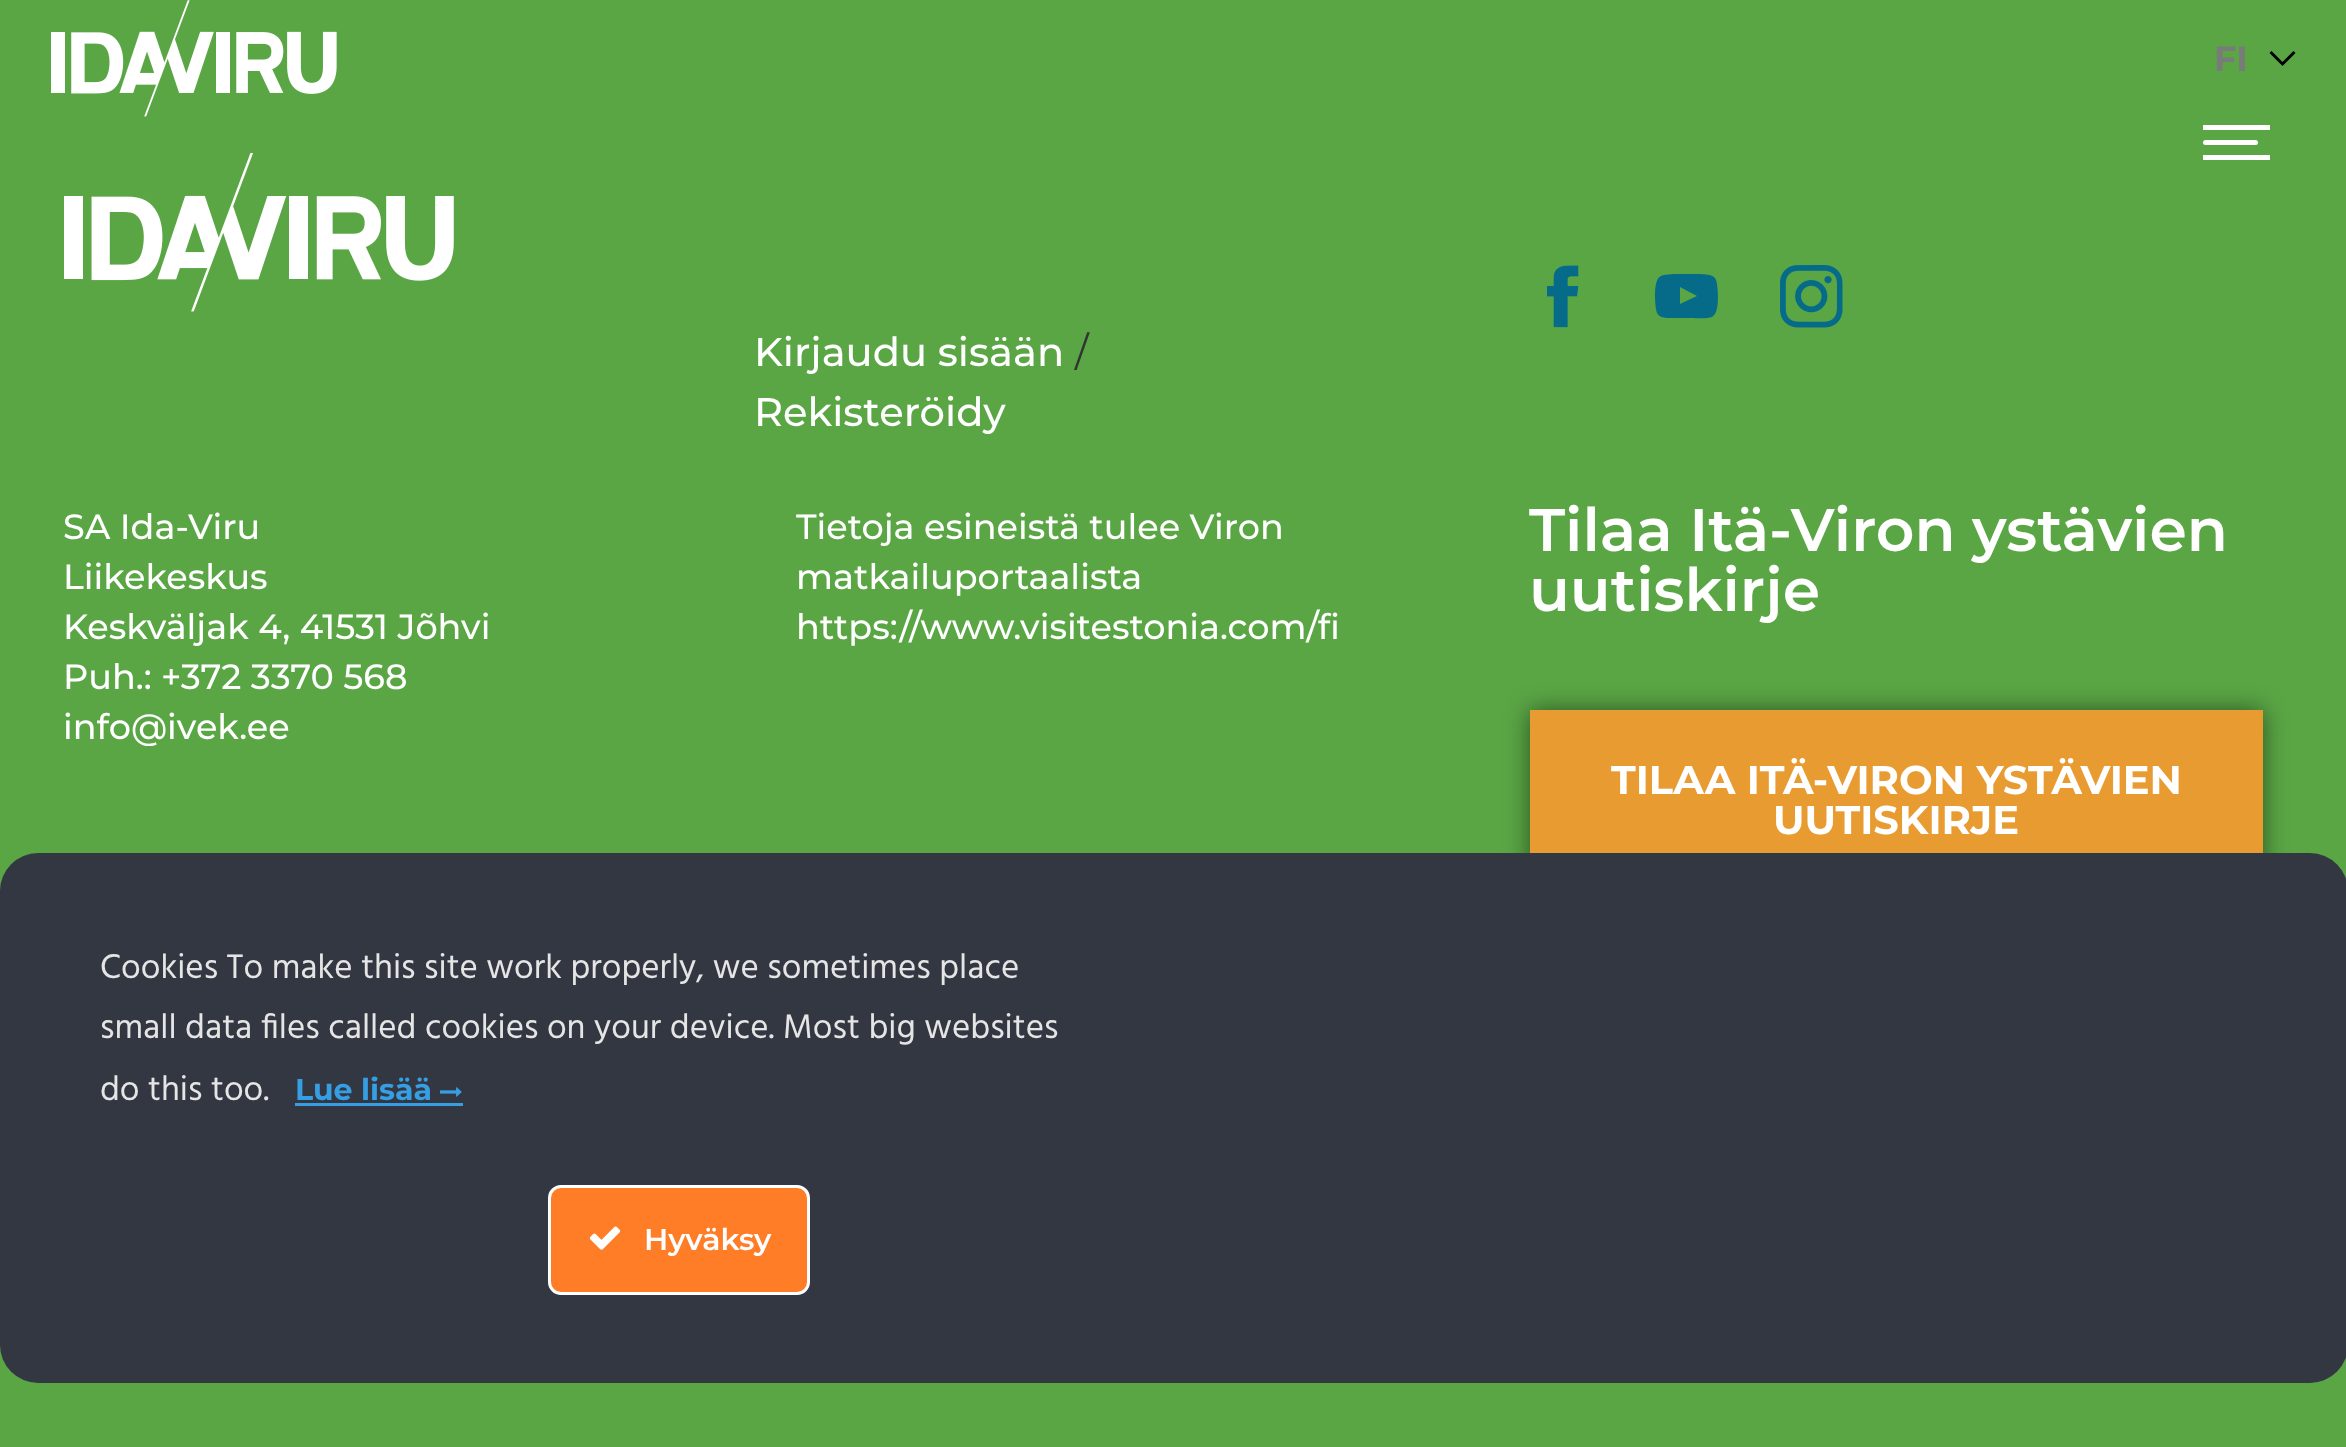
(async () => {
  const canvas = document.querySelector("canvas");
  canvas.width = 2346;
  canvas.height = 1447;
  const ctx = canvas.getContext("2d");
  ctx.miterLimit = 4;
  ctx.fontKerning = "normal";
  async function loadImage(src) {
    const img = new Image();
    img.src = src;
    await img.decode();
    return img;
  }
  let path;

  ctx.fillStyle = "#5aa645";
  ctx.fillRect(0, 0, 2346, 1447);
  ctx.drawImage(await loadImage("img/1.png"), 51, 0, 286, 117);
  path = new Path2D("M2270.5 52L2282.5 64L2294.5 52");
  ctx.strokeStyle = "#000000";
  ctx.lineWidth = 3;
  ctx.stroke(path);
  ctx.fillStyle = "#ffffff";
  ctx.beginPath();
  ctx.roundRect(2203, 140, 55, 5, 2.5);
  ctx.fill();
  ctx.fillRect(2203, 125, 67, 5);
  ctx.fillRect(2203, 155, 67, 5);
  ctx.drawImage(await loadImage("img/2.png"), 64, 153, 390, 159);
  ctx.drawImage(await loadImage("img/3.png"), 1547, 265, 32, 63);
  ctx.fillStyle = "#066b89";
  path = new Path2D("M1717 284C1716 274 1709 275 1701 274H1682C1677 274 1665 274 1661 276C1653 279 1655 302 1656 309C1657 319 1666 318 1674 318H1691C1696 318 1707 319 1712 317C1720 313 1718 291 1717 284ZM1680 304V287L1697 296Z");
  ctx.fill(path, "evenodd");
  ctx.drawImage(await loadImage("img/4.png"), 1780, 265, 63, 63);
  ctx.fillStyle = "rgba(0, 0, 0, 0.5)";
  ctx.filter = "blur(12.5px)";
  ctx.beginPath();
  ctx.rect(1530, 710, 733, 185);
  ctx.fill();
  ctx.filter = "none";
  ctx.fillStyle = "#e89b30";
  ctx.fillRect(1530, 710, 733, 143);
  ctx.fillStyle = "#323742";
  ctx.beginPath();
  ctx.roundRect(0, 853, 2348, 530, 38);
  ctx.fill();
  ctx.fillStyle = "#369ee3";
  ctx.fillRect(295, 1103, 168, 3);
  ctx.drawImage(await loadImage("img/5.png"), 440, 1087, 22, 10);
  ctx.fillStyle = "#ff7d27";
  ctx.beginPath();
  ctx.roundRect(549.5, 1186.5, 259, 107, 11.5);
  ctx.fill();
  ctx.strokeStyle = "#ffffff";
  ctx.stroke();
  ctx.drawImage(await loadImage("img/6.png"), 589, 1226, 32, 24);
  ctx.font = "bold 35px Montserrat";
  ctx.fillStyle = "#7a7a7a";
  ctx.fillText("FI", 2214, 71);
  ctx.font = "500 40px Montserrat";
  ctx.fillStyle = "#ffffff";
  ctx.fillText("Kirjaudu sisään", 754, 366);
  ctx.font = "40px Montserrat";
  ctx.fillStyle = "#333333";
  ctx.fillText("/", 1075, 366);
  ctx.font = "500 40px Montserrat";
  ctx.fillStyle = "#ffffff";
  ctx.fillText("Rekisteröidy", 754, 426);
  ctx.font = "500 35px Montserrat";
  for (const [text, x, y] of [
    ["SA Ida-Viru", 63, 539],
    ["Liikekeskus", 63, 589],
    ["Keskväljak 4, 41531 Jõhvi", 63, 639],
    ["Puh.: +372 3370 568", 63, 689],
    ["info@ivek.ee", 63, 739],
    ["Tietoja esineistä tulee Viron", 796, 539],
    ["matkailuportaalista", 796, 589],
    ["https://www.visitestonia.com/fi", 796, 639],
  ]) {
    ctx.fillText(text, x, y);
  }
  ctx.font = "600 60px Montserrat";
  ctx.fillText("Tilaa Itä-Viron ystävien", 1529, 551);
  ctx.fillText("uutiskirje", 1529, 611);
  ctx.font = "bold 40px Montserrat";
  ctx.fillText("TILAA ITÄ-VIRON YSTÄVIEN", 1611, 794);
  ctx.fillText("UUTISKIRJE", 1773, 834);
  ctx.font = "35px Hind";
  ctx.fillStyle = "#e5e5e5";
  for (const [text, x, y] of [
    ["Cookies To make this site work properly, we sometimes place", 100, 978],
    ["small data files called cookies on your device. Most big websites", 100, 1038],
    ["do this too.", 100, 1100],
  ]) {
    ctx.fillText(text, x, y);
  }
  ctx.font = "bold 30px 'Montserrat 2'";
  ctx.fillStyle = "#369ee3";
  ctx.fillText("Lue lisää", 295, 1100);
  ctx.font = "600 30px 'Montserrat 2'";
  ctx.fillStyle = "#ffffff";
  ctx.fillText("Hyväksy", 644, 1250);
})();
